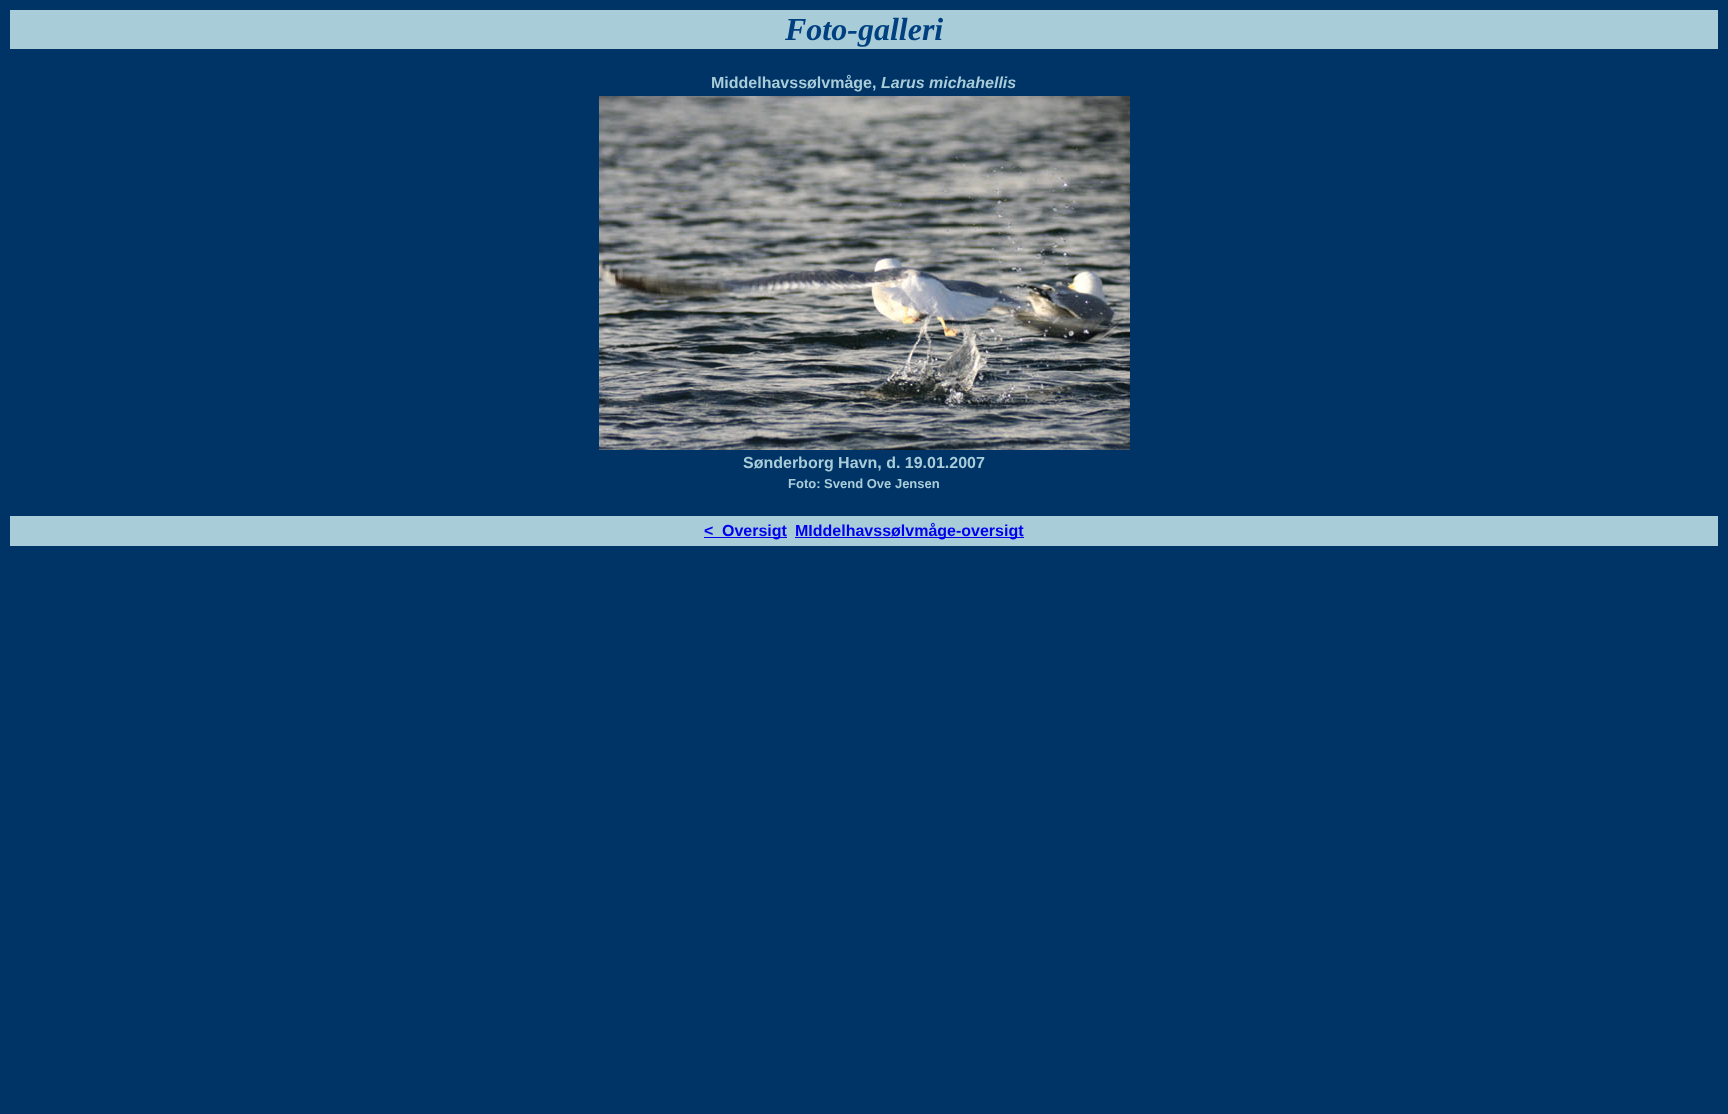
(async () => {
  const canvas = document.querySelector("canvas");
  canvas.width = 1728;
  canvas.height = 1114;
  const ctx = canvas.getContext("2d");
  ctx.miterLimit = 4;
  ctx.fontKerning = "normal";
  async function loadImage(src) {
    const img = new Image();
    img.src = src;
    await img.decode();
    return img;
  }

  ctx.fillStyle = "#003366";
  ctx.fillRect(0, 0, 1728, 1114);
  ctx.fillStyle = "#a8cdd9";
  ctx.fillRect(10, 10, 1708, 39);
  ctx.drawImage(await loadImage("img/1.png"), 599, 96, 531, 354);
  for (const [x, y, w, h, color] of [
    [10, 516, 1708, 30, "#a8cdd9"],
    [704, 537, 83, 1, "#0000ee"],
    [795, 537, 229, 1, "#0000ee"],
  ]) {
    ctx.fillStyle = color;
    ctx.fillRect(x, y, w, h);
  }
  ctx.font = "italic bold 32px Liberation Serif";
  ctx.fillStyle = "#004080";
  ctx.fillText("Foto-galleri", 785, 40);
  ctx.font = "bold 16px Liberation Sans";
  ctx.fillStyle = "#a8cdd9";
  ctx.fillText("Middelhavssølvmåge,", 711, 88);
  ctx.font = "italic bold 16px Liberation Sans";
  ctx.fillText("Larus michahellis", 881, 88);
  ctx.font = "bold 16px Liberation Sans";
  ctx.fillText("Sønderborg Havn, d. 19.01.2007", 743, 468);
  ctx.font = "bold 13px Liberation Sans";
  ctx.fillText("Foto: Svend Ove Jensen", 788, 488);
  ctx.font = "bold 16px Liberation Sans";
  ctx.fillStyle = "#0000ee";
  for (const [text, x, y] of [
    ["<", 704, 536],
    ["Oversigt", 722, 536],
    ["MIddelhavssølvmåge-oversigt", 795, 536],
  ]) {
    ctx.fillText(text, x, y);
  }
})();
